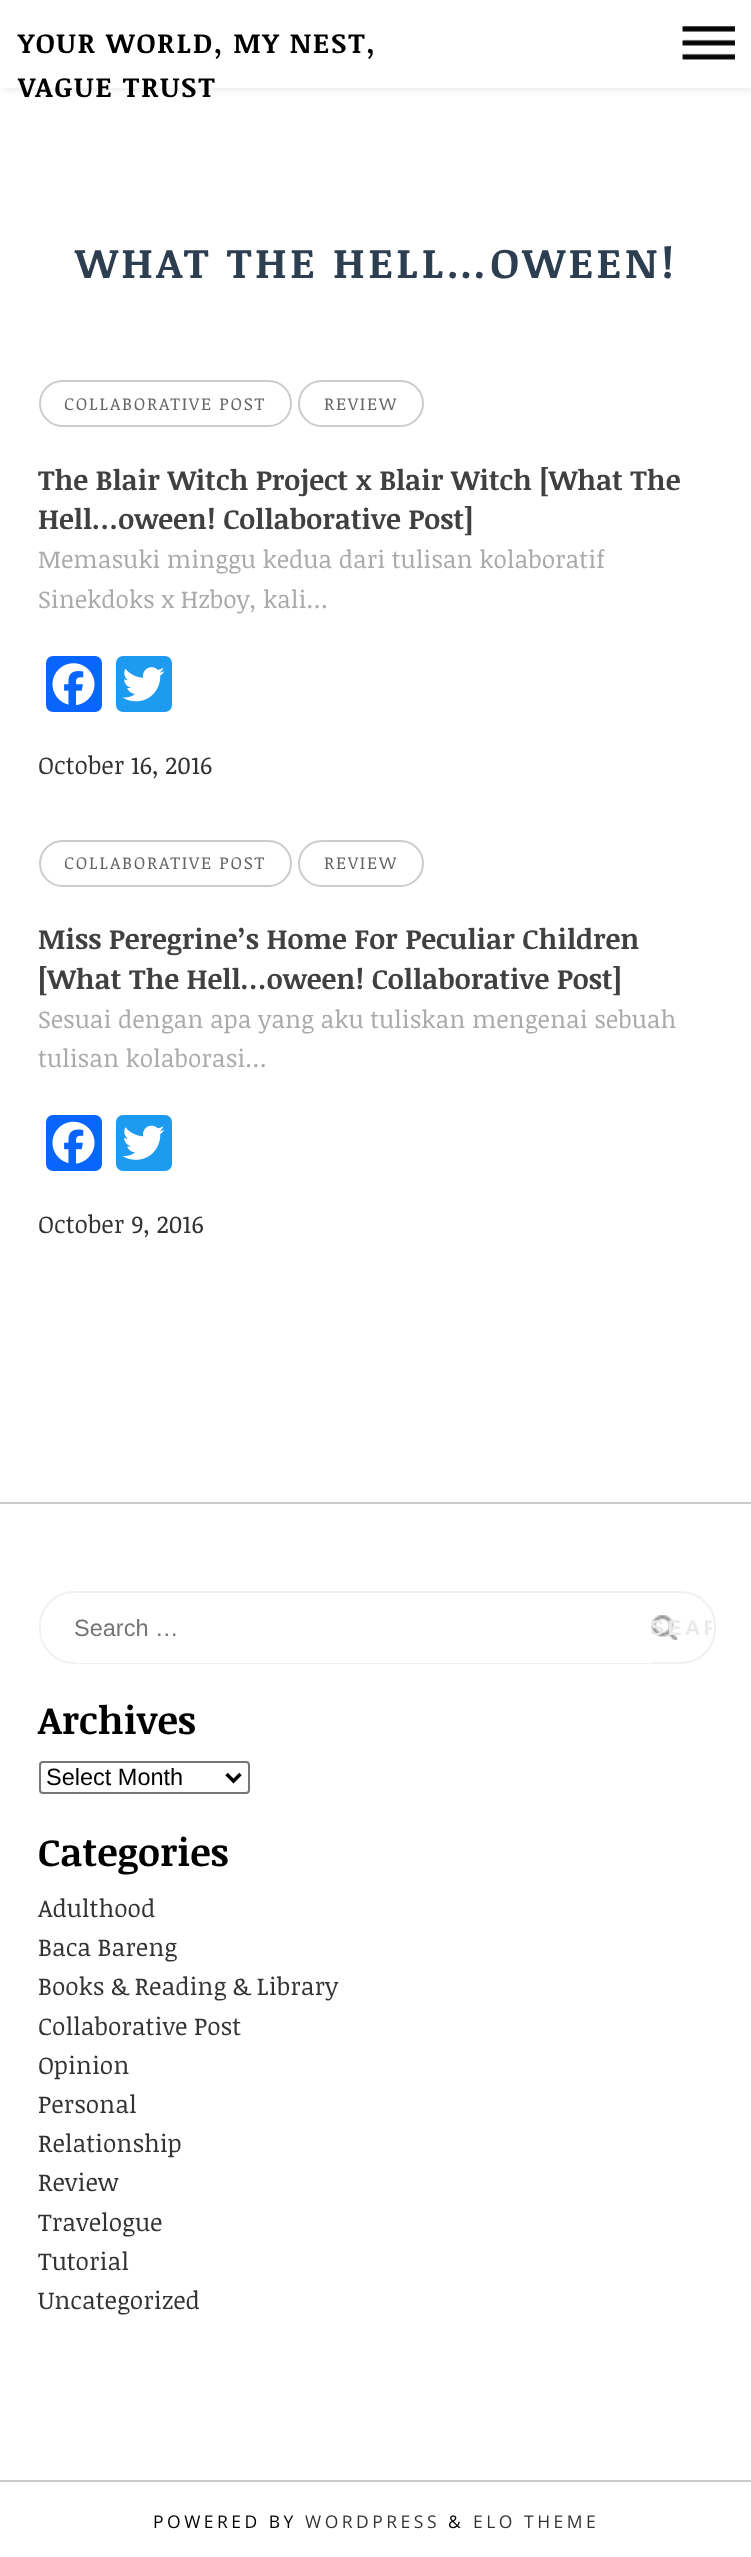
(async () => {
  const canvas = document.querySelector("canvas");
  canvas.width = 751;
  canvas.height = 2557;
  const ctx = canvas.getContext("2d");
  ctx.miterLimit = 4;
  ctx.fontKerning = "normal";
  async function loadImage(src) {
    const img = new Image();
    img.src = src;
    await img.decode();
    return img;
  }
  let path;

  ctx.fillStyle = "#ffffff";
  ctx.fillRect(0, 0, 751, 2557);
  ctx.fillStyle = "rgba(0, 0, 0, 0.1)";
  ctx.filter = "blur(4.5px)";
  ctx.beginPath();
  ctx.rect(2, 2, 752, 87);
  ctx.fill();
  ctx.filter = "none";
  ctx.fillStyle = "#ffffff";
  ctx.fillRect(0, 0, 751, 88);
  ctx.drawImage(await loadImage("img/1.png"), 682, 26, 53, 34);
  ctx.beginPath();
  ctx.roundRect(40, 381, 251, 45, 22.5);
  ctx.strokeStyle = "#cccccc";
  ctx.lineWidth = 2;
  ctx.stroke();
  ctx.beginPath();
  ctx.roundRect(299, 381, 124, 45, 22.5);
  ctx.stroke();
  ctx.fillStyle = "#0866ff";
  ctx.beginPath();
  ctx.roundRect(46, 656, 56, 56, 7);
  ctx.fill();
  ctx.drawImage(await loadImage("img/2.png"), 52, 663, 43, 43);
  ctx.fillStyle = "#1d9bf0";
  ctx.beginPath();
  ctx.roundRect(116, 656, 56, 56, 7);
  ctx.fill();
  ctx.drawImage(await loadImage("img/3.png"), 122, 667, 43, 35);
  ctx.beginPath();
  ctx.roundRect(40, 841, 251, 45, 22.5);
  ctx.stroke();
  ctx.beginPath();
  ctx.roundRect(299, 841, 124, 45, 22.5);
  ctx.stroke();
  ctx.fillStyle = "#0866ff";
  ctx.beginPath();
  ctx.roundRect(46, 1115, 56, 56, 7);
  ctx.fill();
  ctx.drawImage(await loadImage("img/4.png"), 52, 1121, 43, 43);
  ctx.fillStyle = "#1d9bf0";
  ctx.beginPath();
  ctx.roundRect(116, 1115, 56, 56, 7);
  ctx.fill();
  ctx.drawImage(await loadImage("img/5.png"), 122, 1125, 43, 35);
  ctx.fillStyle = "#cccccc";
  ctx.fillRect(0, 1502, 751, 2);
  ctx.beginPath();
  ctx.roundRect(40, 1592, 675, 71, 34);
  ctx.strokeStyle = "#f1f1f1";
  ctx.stroke();
  ctx.fillStyle = "#ffffff";
  ctx.fillRect(75, 1662, 578, 1);
  ctx.drawImage(await loadImage("img/6.png"), 651, 1615, 27, 25);
  ctx.beginPath();
  ctx.roundRect(40, 1762, 209, 31, 3);
  ctx.strokeStyle = "#767676";
  ctx.stroke();
  path = new Path2D("M226.5 1774L233.5 1781L240.5 1774");
  ctx.strokeStyle = "#000000";
  ctx.lineWidth = 3.5;
  ctx.stroke(path);
  ctx.fillStyle = "#cccccc";
  ctx.fillRect(0, 2480, 751, 2);
  ctx.letterSpacing = "1.75px";
  ctx.font = "bold 28px Noticia Text";
  ctx.fillStyle = "#000000";
  ctx.fillText("YOUR WORLD, MY NEST,", 18, 53);
  ctx.fillText("VAGUE TRUST", 18, 97);
  ctx.letterSpacing = "3.5px";
  ctx.font = "bold 42px Noticia Text";
  ctx.fillStyle = "#2c3e50";
  ctx.fillText("WHAT THE HELL…OWEEN!", 75, 278);
  ctx.letterSpacing = "1.75px";
  ctx.font = "17.5px Noticia Text";
  ctx.fillStyle = "#666666";
  ctx.fillText("COLLABORATIVE POST", 64, 410);
  ctx.fillText("REVIEW", 324, 410);
  ctx.letterSpacing = "0px";
  ctx.font = "bold 28px Noticia Text";
  ctx.fillStyle = "#404040";
  ctx.fillText("The Blair Witch Project x Blair Witch [What The", 38, 490);
  ctx.fillText("Hell…oween! Collaborative Post]", 38, 529);
  ctx.font = "24.5px Noticia Text";
  ctx.fillStyle = "#aaaaaa";
  ctx.fillText("Memasuki minggu kedua dari tulisan kolaboratif", 38, 568);
  ctx.fillText("Sinekdoks x Hzboy, kali…", 38, 608);
  ctx.fillStyle = "#333333";
  ctx.fillText("October 16, 2016", 38, 774);
  ctx.letterSpacing = "1.75px";
  ctx.font = "17.5px Noticia Text";
  ctx.fillStyle = "#666666";
  ctx.fillText("COLLABORATIVE POST", 64, 869);
  ctx.fillText("REVIEW", 324, 869);
  ctx.letterSpacing = "0px";
  ctx.font = "bold 28px Noticia Text";
  ctx.fillStyle = "#404040";
  ctx.fillText("Miss Peregrine’s Home For Peculiar Children", 38, 949);
  ctx.fillText("[What The Hell…oween! Collaborative Post]", 38, 989);
  ctx.font = "24.5px Noticia Text";
  ctx.fillStyle = "#aaaaaa";
  ctx.fillText("Sesuai dengan apa yang aku tuliskan mengenai sebuah", 38, 1028);
  ctx.fillText("tulisan kolaborasi…", 38, 1067);
  ctx.fillStyle = "#333333";
  ctx.fillText("October 9, 2016", 38, 1233);
  ctx.font = "23.5px Liberation Sans";
  ctx.fillStyle = "#757575";
  ctx.fillText("Search …", 74, 1636);
  ctx.save();
  ctx.beginPath();
  ctx.roundRect(616, 1594, 96, 67, 33.5);
  ctx.clip();
  ctx.letterSpacing = "3.5px";
  ctx.font = "bold 21px Liberation Sans";
  ctx.fillStyle = "#e9e9e9";
  ctx.fillText("SEAR", 650, 1635);
  ctx.restore();
  ctx.font = "bold 38.5px Noticia Text";
  ctx.fillStyle = "#000000";
  ctx.fillText("Archives", 38, 1734);
  ctx.font = "23.5px Liberation Sans";
  ctx.fillText("Select Month", 46, 1785);
  ctx.font = "bold 38.5px Noticia Text";
  ctx.fillText("Categories", 38, 1866);
  ctx.font = "24.5px Noticia Text";
  ctx.fillStyle = "#333333";
  for (const [text, x, y] of [
    ["Adulthood", 38, 1917],
    ["Baca Bareng", 38, 1956],
    ["Books & Reading & Library", 38, 1995],
    ["Collaborative Post", 38, 2035],
    ["Opinion", 38, 2074],
    ["Personal", 38, 2113],
    ["Relationship", 38, 2152],
    ["Review", 38, 2191],
    ["Travelogue", 38, 2231],
    ["Tutorial", 38, 2270],
    ["Uncategorized", 38, 2309],
  ]) {
    ctx.fillText(text, x, y);
  }
  ctx.letterSpacing = "3.5px";
  ctx.font = "17.5px Open Sans";
  ctx.fillStyle = "#000000";
  ctx.fillText("POWERED BY", 153, 2528);
  ctx.fillStyle = "#333333";
  ctx.fillText("WORDPRESS", 305, 2528);
  ctx.fillStyle = "#000000";
  ctx.fillText("&", 448, 2528);
  ctx.fillStyle = "#333333";
  ctx.fillText("ELO THEME", 473, 2528);
})();
